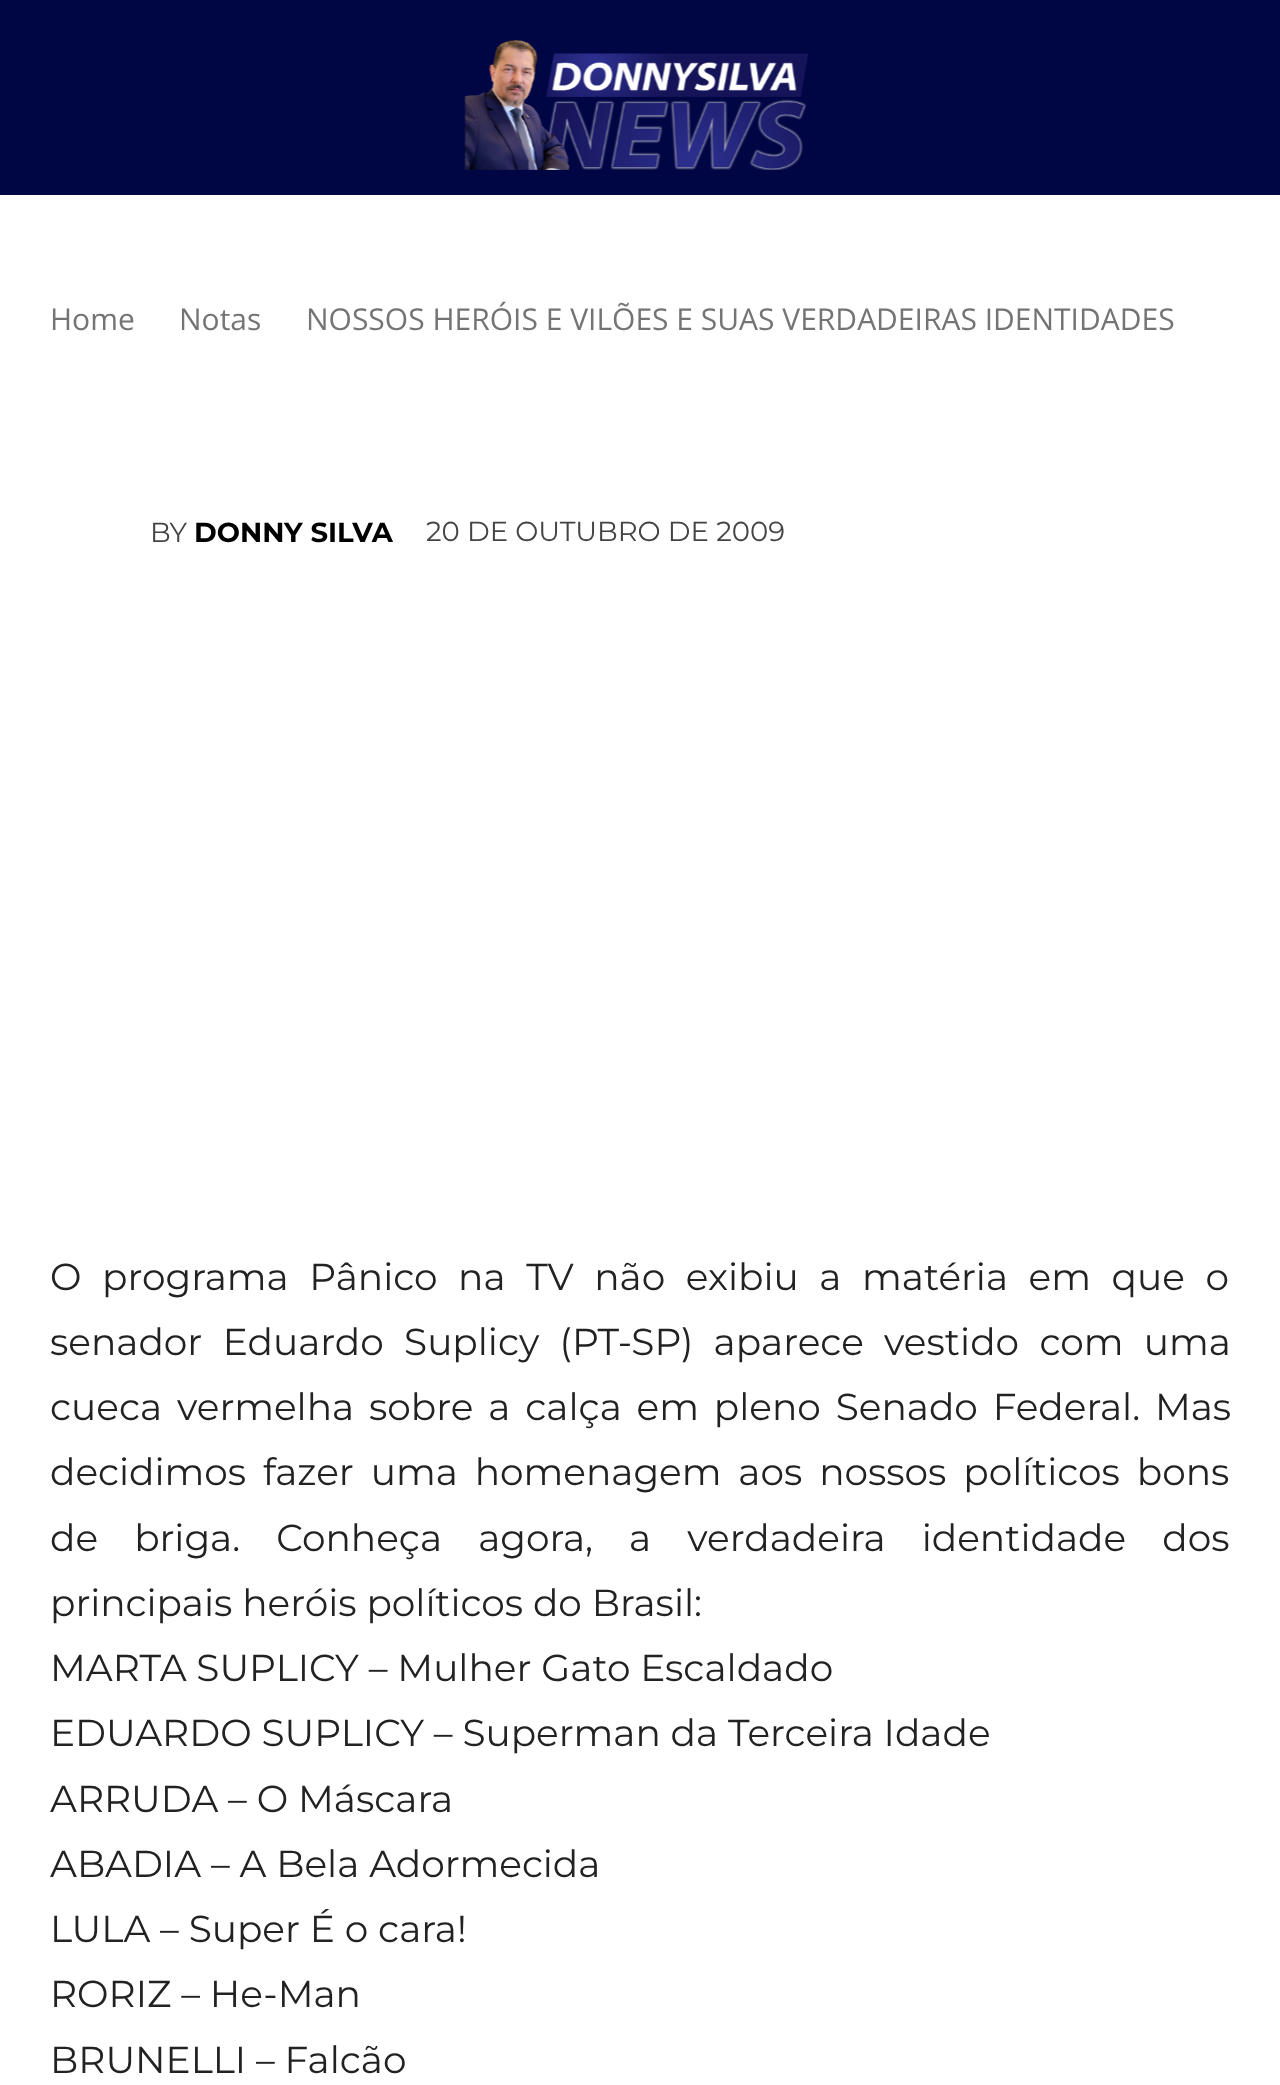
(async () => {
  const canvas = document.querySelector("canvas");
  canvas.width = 1280;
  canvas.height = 2085;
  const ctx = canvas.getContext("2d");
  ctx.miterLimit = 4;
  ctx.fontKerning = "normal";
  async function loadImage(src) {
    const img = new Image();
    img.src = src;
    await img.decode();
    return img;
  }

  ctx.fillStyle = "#ffffff";
  ctx.fillRect(0, 0, 1280, 2085);
  ctx.fillStyle = "#000544";
  ctx.fillRect(0, 0, 1280, 195);
  ctx.drawImage(await loadImage("img/1.png"), 464, 40, 345, 130);
  ctx.font = "30px Open Sans";
  ctx.fillStyle = "#747474";
  for (const [text, x, y] of [
    ["Home", 50, 330],
    ["Notas", 179, 330],
    ["NOSSOS HERÓIS E VILÕES E SUAS VERDADEIRAS IDENTIDADES", 306, 330],
  ]) {
    ctx.fillText(text, x, y);
  }
  ctx.font = "27.5px Montserrat";
  ctx.fillStyle = "#444444";
  ctx.fillText("BY", 150, 542);
  ctx.font = "bold 27.5px Montserrat";
  ctx.fillStyle = "#000000";
  ctx.fillText("DONNY SILVA", 194, 542);
  ctx.font = "27.5px Montserrat";
  ctx.fillStyle = "#444444";
  ctx.fillText("20 DE OUTUBRO DE 2009", 426, 541);
  ctx.wordSpacing = "10.75px";
  ctx.font = "37.5px Montserrat";
  ctx.fillStyle = "#222222";
  ctx.fillText("O programa Pânico na TV não exibiu a matéria em que o", 50, 1290);
  ctx.wordSpacing = "10.5px";
  ctx.fillText("senador Eduardo Suplicy (PT-SP) aparece vestido com uma", 50, 1355);
  ctx.wordSpacing = "5px";
  ctx.fillText("cueca vermelha sobre a calça em pleno Senado Federal. Mas", 50, 1420);
  ctx.wordSpacing = "7px";
  ctx.fillText("decidimos fazer uma homenagem aos nossos políticos bons", 50, 1485);
  ctx.wordSpacing = "26.25px";
  ctx.fillText("de briga. Conheça agora, a verdadeira identidade dos", 50, 1551);
  ctx.wordSpacing = "0px";
  for (const [text, x, y] of [
    ["principais heróis políticos do Brasil:", 50, 1616],
    ["MARTA SUPLICY – Mulher Gato Escaldado", 50, 1681],
    ["EDUARDO SUPLICY – Superman da Terceira Idade", 50, 1746],
    ["ARRUDA – O Máscara", 50, 1812],
    ["ABADIA – A Bela Adormecida", 50, 1877],
    ["LULA – Super É o cara!", 50, 1942],
    ["RORIZ – He-Man", 50, 2007],
    ["BRUNELLI – Falcão", 50, 2073],
  ]) {
    ctx.fillText(text, x, y);
  }
})();
